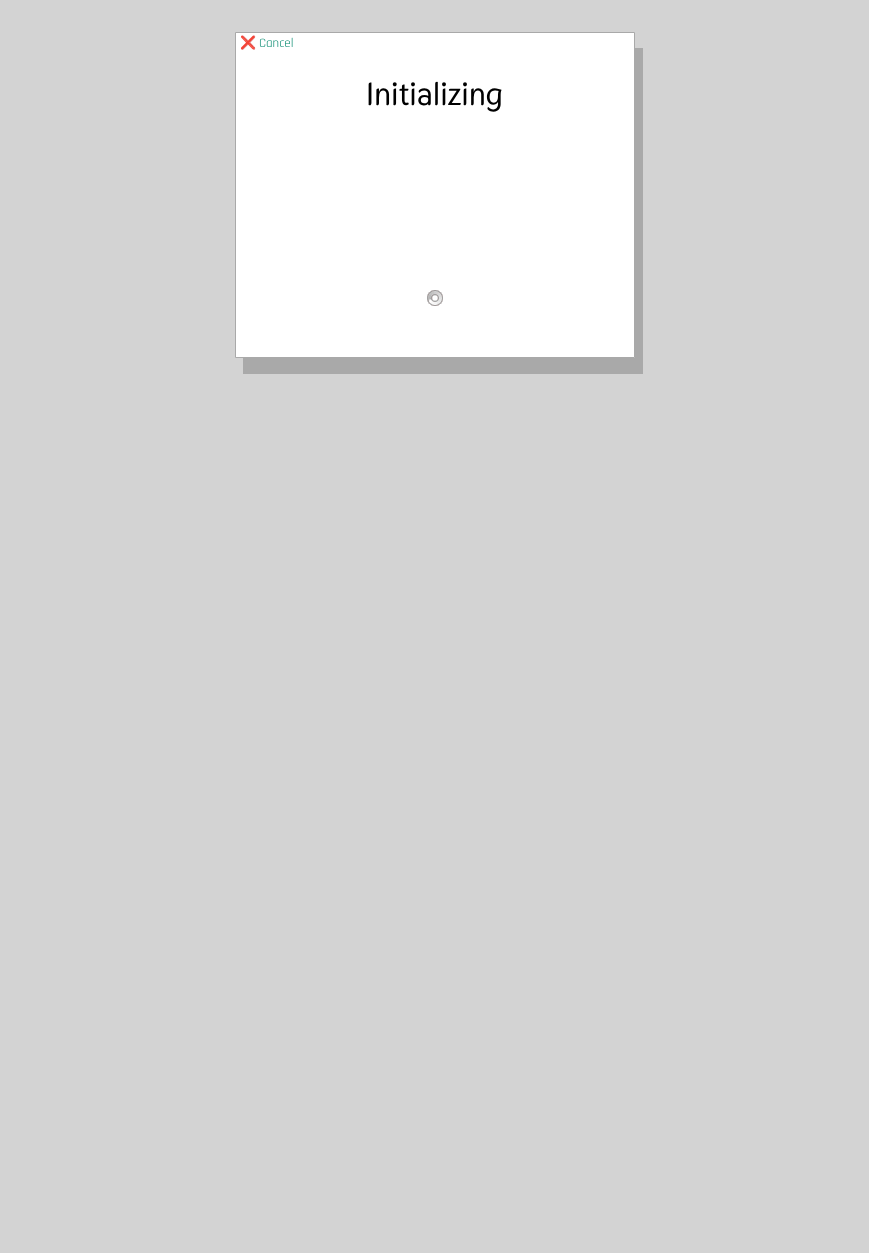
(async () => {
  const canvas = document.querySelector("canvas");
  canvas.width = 869;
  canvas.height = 1253;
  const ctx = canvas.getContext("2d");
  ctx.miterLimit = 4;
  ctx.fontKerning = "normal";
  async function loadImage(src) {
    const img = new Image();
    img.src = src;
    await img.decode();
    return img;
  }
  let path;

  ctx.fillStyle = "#d3d3d3";
  ctx.fillRect(0, 0, 869, 1253);
  ctx.fillStyle = "#a9a9a9";
  path = new Path2D("M243 358V374H643V48H635V358Z");
  ctx.fill(path);
  ctx.fillStyle = "#ffffff";
  ctx.beginPath();
  ctx.rect(235.5, 32.5, 399, 325);
  ctx.fill();
  ctx.strokeStyle = "#a9a9a9";
  ctx.stroke();
  ctx.drawImage(await loadImage("img/1.png"), 427, 290, 16, 16);
  ctx.font = "13px Noto Color Emoji";
  ctx.fillStyle = "#01876c";
  ctx.fillText("❌", 240, 47);
  ctx.font = "13px Rajdhani";
  ctx.fillText("Cancel", 259, 47);
  ctx.font = "bold 32px Thasadith";
  ctx.fillStyle = "#000000";
  ctx.fillText("Initializing", 366, 105);
})();
